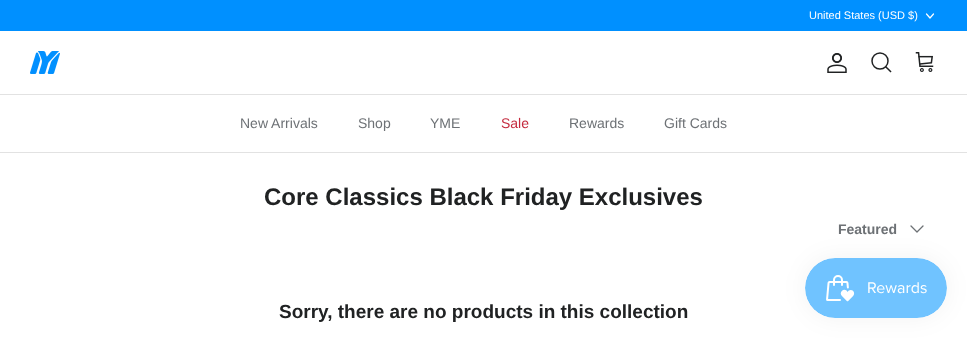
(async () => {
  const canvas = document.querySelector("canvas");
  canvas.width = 967;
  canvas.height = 338;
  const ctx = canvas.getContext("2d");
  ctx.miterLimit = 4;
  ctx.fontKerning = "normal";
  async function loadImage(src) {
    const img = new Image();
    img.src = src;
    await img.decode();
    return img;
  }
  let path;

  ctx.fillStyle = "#ffffff";
  ctx.fillRect(0, 0, 967, 338);
  ctx.fillStyle = "#0090ff";
  ctx.fillRect(0, 0, 967, 31);
  path = new Path2D("M926.5 14L930 18L933.5 14");
  ctx.strokeStyle = "#ffffff";
  ctx.lineWidth = 1.2;
  ctx.lineCap = "round";
  ctx.lineJoin = "round";
  ctx.stroke(path);
  ctx.fillStyle = "#e2e2e2";
  ctx.fillRect(0, 94, 967, 1);
  ctx.drawImage(await loadImage("img/1.png"), 30, 51, 30, 23);
  ctx.drawImage(await loadImage("img/2.png"), 827, 53, 20, 20);
  ctx.beginPath();
  ctx.arc(880, 61, 8, 0, Math.PI * 2);
  ctx.strokeStyle = "#202223";
  ctx.lineWidth = 1.5;
  ctx.stroke();
  path = new Path2D("M886 67L890.5 71.5");
  ctx.lineCap = "square";
  ctx.lineJoin = "miter";
  ctx.stroke(path);
  ctx.drawImage(await loadImage("img/3.png"), 915, 52, 19, 20);
  ctx.fillRect(0, 152, 967, 1);
  path = new Path2D("M911 226L917 232L923 226");
  ctx.strokeStyle = "#6d7175";
  ctx.lineWidth = 1.3;
  ctx.lineCap = "round";
  ctx.lineJoin = "round";
  ctx.stroke(path);
  ctx.fillStyle = "rgba(0, 0, 0, 0.05)";
  ctx.filter = "blur(12.5px)";
  ctx.beginPath();
  ctx.roundRect(805, 258, 142, 60, 30);
  ctx.fill();
  ctx.filter = "none";
  ctx.drawImage(await loadImage("img/4.png"), 805, 258, 142, 60);
  ctx.font = "11px Liberation Sans";
  ctx.fillStyle = "#ffffff";
  ctx.fillText("United States (USD $)", 809, 19);
  ctx.font = "14px Liberation Sans";
  ctx.fillStyle = "#6d7175";
  for (const [text, x, y] of [
    ["New Arrivals", 240, 128],
    ["Shop", 358, 128],
    ["YME", 430, 128],
  ]) {
    ctx.fillText(text, x, y);
  }
  ctx.fillStyle = "#c4293d";
  ctx.fillText("Sale", 501, 128);
  ctx.fillStyle = "#6d7175";
  ctx.fillText("Rewards", 569, 128);
  ctx.fillText("Gift Cards", 664, 128);
  ctx.font = "bold 24px Liberation Sans";
  ctx.fillStyle = "#202223";
  ctx.fillText("Core Classics Black Friday Exclusives", 264, 205);
  ctx.font = "bold 14px Liberation Sans";
  ctx.fillStyle = "#6d7175";
  ctx.fillText("Featured", 838, 234);
  ctx.font = "bold 19px Liberation Sans";
  ctx.fillStyle = "#202223";
  ctx.fillText("Sorry, there are no products in this collection", 279, 318);
})();
